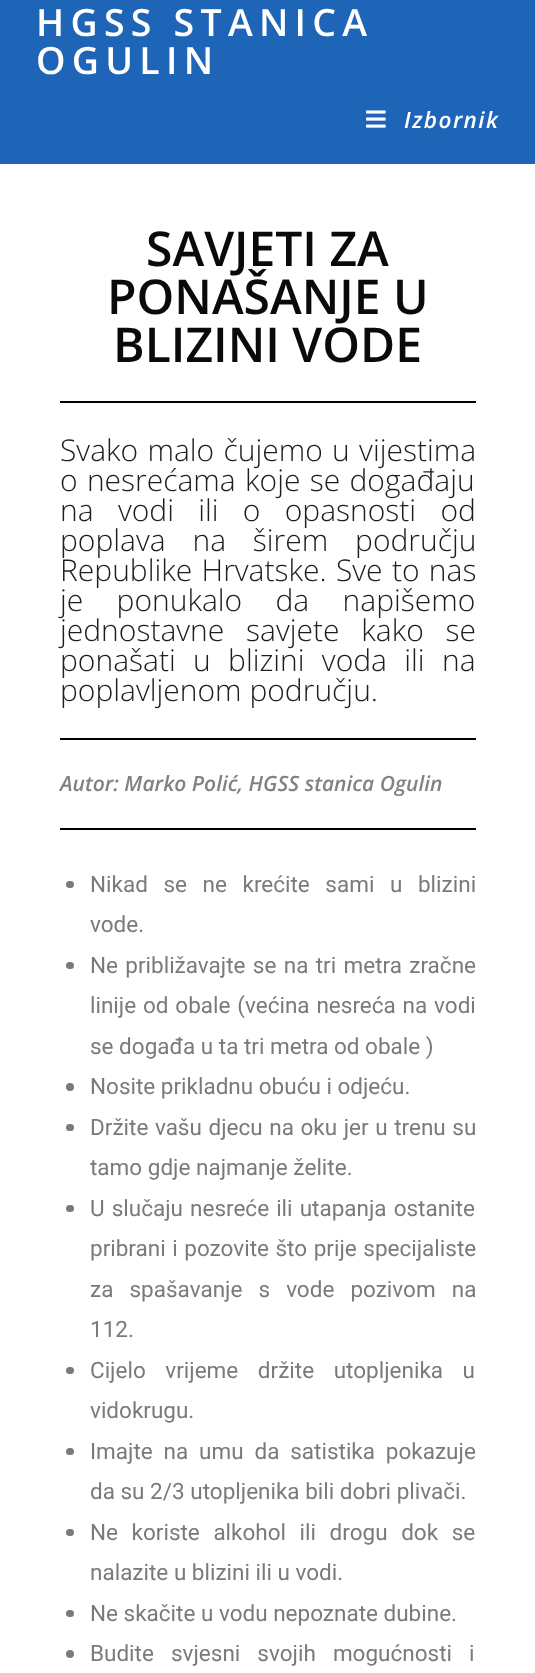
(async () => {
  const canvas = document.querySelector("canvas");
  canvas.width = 535;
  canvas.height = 1673;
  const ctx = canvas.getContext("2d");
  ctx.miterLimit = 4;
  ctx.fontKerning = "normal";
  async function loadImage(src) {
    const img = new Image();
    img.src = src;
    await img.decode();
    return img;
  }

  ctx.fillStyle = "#ffffff";
  ctx.fillRect(0, 0, 535, 1673);
  ctx.fillStyle = "#1f65b7";
  ctx.fillRect(0, 0, 535, 164);
  ctx.drawImage(await loadImage("img/1.png"), 366, 110, 20, 18);
  for (const [x, y, w, h, color] of [
    [60, 401, 416, 2, "#000000"],
    [60, 738, 416, 2, "#000000"],
    [60, 828, 416, 2, "#000000"],
  ]) {
    ctx.fillStyle = color;
    ctx.fillRect(x, y, w, h);
  }
  ctx.fillStyle = "#7a7a7a";
  ctx.beginPath();
  ctx.roundRect(66, 881, 8, 7, 3.5);
  ctx.fill();
  ctx.beginPath();
  ctx.roundRect(66, 962, 8, 7, 3.5);
  ctx.fill();
  ctx.beginPath();
  ctx.arc(70, 1087, 4, 0, Math.PI * 2);
  ctx.fill();
  ctx.beginPath();
  ctx.roundRect(66, 1124, 8, 7, 3.5);
  ctx.fill();
  ctx.beginPath();
  ctx.roundRect(66, 1205, 8, 7, 3.5);
  ctx.fill();
  ctx.beginPath();
  ctx.roundRect(66, 1367, 8, 7, 3.5);
  ctx.fill();
  ctx.beginPath();
  ctx.roundRect(66, 1448, 8, 7, 3.5);
  ctx.fill();
  ctx.beginPath();
  ctx.roundRect(66, 1529, 8, 7, 3.5);
  ctx.fill();
  ctx.beginPath();
  ctx.roundRect(66, 1610, 8, 7, 3.5);
  ctx.fill();
  ctx.beginPath();
  ctx.arc(70, 1654, 4, 0, Math.PI * 2);
  ctx.fill();
  ctx.letterSpacing = "6.25px";
  ctx.font = "600 37.5px Open Sans";
  ctx.fillStyle = "#ffffff";
  ctx.fillText("HGSS STANICA", 36, 36);
  ctx.fillText("OGULIN", 36, 74);
  ctx.letterSpacing = "1.5px";
  ctx.font = "italic 600 22.5px Open Sans";
  ctx.fillText("Izbornik", 404, 128);
  ctx.letterSpacing = "0px";
  ctx.font = "600 48px Open Sans";
  ctx.fillStyle = "#0a0a0a";
  for (const [text, x, y] of [
    ["SAVJETI ZA", 146, 266],
    ["PONAŠANJE U", 107, 314],
    ["BLIZINI VODE", 113, 362],
  ]) {
    ctx.fillText(text, x, y);
  }
  ctx.wordSpacing = "1.5px";
  ctx.font = "300 30px Open Sans";
  ctx.fillStyle = "#1e1e1e";
  ctx.fillText("Svako malo čujemo u vijestima", 60, 461);
  ctx.fillText("o nesrećama koje se događaju", 60, 491);
  ctx.wordSpacing = "16.5px";
  ctx.fillText("na vodi ili o opasnosti od", 60, 521);
  ctx.wordSpacing = "19px";
  ctx.fillText("poplava na širem području", 60, 551);
  ctx.wordSpacing = "1.5px";
  ctx.fillText("Republike Hrvatske. Sve to nas", 60, 581);
  ctx.wordSpacing = "25.5px";
  ctx.fillText("je ponukalo da napišemo", 60, 611);
  ctx.wordSpacing = "14px";
  ctx.fillText("jednostavne savjete kako se", 60, 641);
  ctx.wordSpacing = "9.5px";
  ctx.fillText("ponašati u blizini voda ili na", 60, 671);
  ctx.wordSpacing = "0px";
  ctx.fillText("poplavljenom području.", 60, 701);
  ctx.font = "italic 600 21px Open Sans";
  ctx.fillStyle = "#828282";
  ctx.fillText("Autor: Marko Polić, HGSS stanica Ogulin", 60, 791);
  ctx.wordSpacing = "10px";
  ctx.font = "22.5px Roboto";
  ctx.fillStyle = "#7a7a7a";
  ctx.fillText("Nikad se ne krećite sami u blizini", 90, 892);
  ctx.wordSpacing = "0px";
  ctx.fillText("vode.", 90, 932);
  ctx.wordSpacing = "1.75px";
  ctx.fillText("Ne približavajte se na tri metra zračne", 90, 973);
  ctx.wordSpacing = "1.25px";
  ctx.fillText("linije od obale (većina nesreća na vodi", 90, 1013);
  ctx.wordSpacing = "0px";
  ctx.fillText("se događa u ta tri metra od obale )", 90, 1054);
  ctx.fillText("Nosite prikladnu obuću i odjeću.", 90, 1094);
  ctx.wordSpacing = "1px";
  ctx.fillText("Držite vašu djecu na oku jer u trenu su", 90, 1135);
  ctx.wordSpacing = "0px";
  ctx.fillText("tamo gdje najmanje želite.", 90, 1175);
  ctx.wordSpacing = "1.5px";
  ctx.fillText("U slučaju nesreće ili utapanja ostanite", 90, 1216);
  ctx.wordSpacing = "1px";
  ctx.fillText("pribrani i pozovite što prije specijaliste", 90, 1256);
  ctx.wordSpacing = "10.5px";
  ctx.fillText("za spašavanje s vode pozivom na", 90, 1297);
  ctx.wordSpacing = "0px";
  ctx.fillText("112.", 90, 1337);
  ctx.wordSpacing = "14px";
  ctx.fillText("Cijelo vrijeme držite utopljenika u", 90, 1378);
  ctx.wordSpacing = "0px";
  ctx.fillText("vidokrugu.", 90, 1418);
  ctx.wordSpacing = "5.25px";
  ctx.fillText("Imajte na umu da satistika pokazuje", 90, 1459);
  ctx.wordSpacing = "0px";
  ctx.fillText("da su 2/3 utopljenika bili dobri plivači.", 90, 1499);
  ctx.wordSpacing = "8px";
  ctx.fillText("Ne koriste alkohol ili drogu dok se", 90, 1540);
  ctx.wordSpacing = "0px";
  ctx.fillText("nalazite u blizini ili u vodi.", 90, 1580);
  ctx.fillText("Ne skačite u vodu nepoznate dubine.", 90, 1621);
  ctx.wordSpacing = "11.5px";
  ctx.fillText("Budite svjesni svojih mogućnosti i", 90, 1661);
})();
